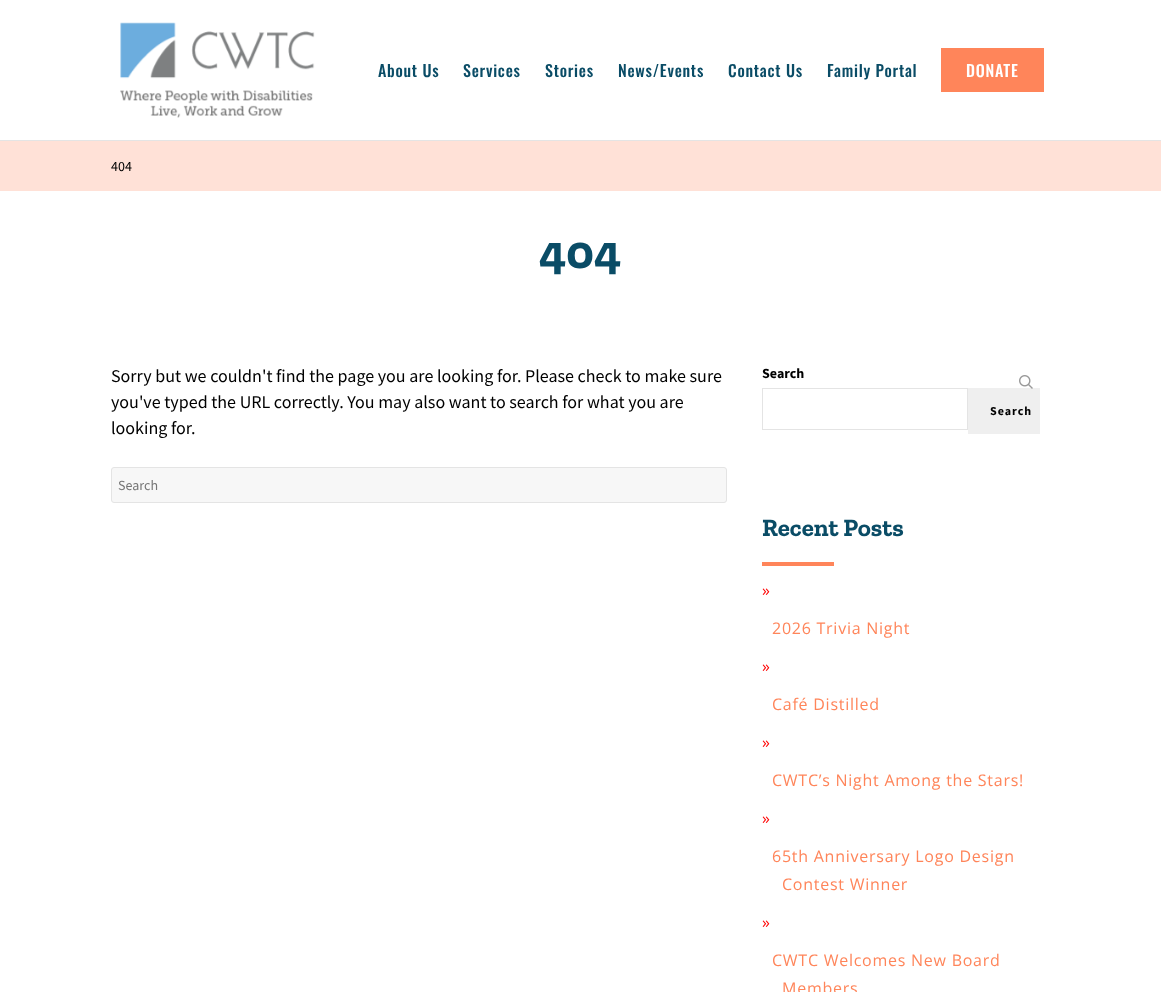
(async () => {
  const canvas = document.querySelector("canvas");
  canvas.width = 1161;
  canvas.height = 992;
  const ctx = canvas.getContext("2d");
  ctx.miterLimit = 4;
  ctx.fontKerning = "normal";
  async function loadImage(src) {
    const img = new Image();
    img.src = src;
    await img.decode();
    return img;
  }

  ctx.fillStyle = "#ffffff";
  ctx.fillRect(0, 0, 1161, 992);
  ctx.fillStyle = "#e4e4e4";
  ctx.fillRect(0, 140, 1161, 1);
  ctx.drawImage(await loadImage("img/1.png"), 120, 22, 195, 96);
  ctx.fillStyle = "#ff855a";
  ctx.fillRect(941, 48, 103, 44);
  ctx.fillStyle = "#ffe1d7";
  ctx.fillRect(0, 141, 1161, 50);
  ctx.fillStyle = "#f7f7f7";
  ctx.beginPath();
  ctx.roundRect(111.5, 467.5, 615, 35, 2.5);
  ctx.fill();
  ctx.strokeStyle = "#e4e4e4";
  ctx.stroke();
  ctx.fillStyle = "#efefef";
  ctx.fillRect(968, 388, 72, 46);
  ctx.drawImage(await loadImage("img/2.png"), 1019, 375, 14, 14);
  ctx.strokeRect(762.5, 388.5, 205, 41);
  ctx.fillStyle = "#ff855a";
  ctx.fillRect(762, 562, 72, 4);
  ctx.letterSpacing = "0.75px";
  ctx.font = "500 16px Oswald";
  ctx.fillStyle = "#0a4c66";
  for (const [text, x, y] of [
    ["About Us", 378, 77],
    ["Services", 463, 77],
    ["Stories", 545, 77],
    ["News/Events", 618, 77],
    ["Contact Us", 728, 77],
    ["Family Portal", 827, 77],
  ]) {
    ctx.fillText(text, x, y);
  }
  ctx.fillStyle = "#ffffff";
  ctx.fillText("DONATE", 966, 77);
  ctx.letterSpacing = "0px";
  ctx.font = "14px Source Sans Pro";
  ctx.fillStyle = "#000000";
  ctx.fillText("404", 111, 171);
  ctx.font = "bold 48px Zilla Slab";
  ctx.fillStyle = "#0a4c66";
  ctx.fillText("404", 539, 268);
  ctx.font = "18px Source Sans Pro";
  ctx.fillStyle = "#000000";
  for (const [text, x, y] of [
    ["Sorry but we couldn't find the page you are looking for. Please check to make sure", 111, 382],
    ["you've typed the URL correctly. You may also want to search for what you are", 111, 408],
    ["looking for.", 111, 434],
  ]) {
    ctx.fillText(text, x, y);
  }
  ctx.font = "14px Source Sans Pro";
  ctx.fillStyle = "#757575";
  ctx.fillText("Search", 118, 490);
  ctx.font = "bold 14px Source Sans Pro";
  ctx.fillStyle = "#000000";
  ctx.fillText("Search", 762, 378);
  ctx.letterSpacing = "1px";
  ctx.font = "bold 12px Source Sans Pro";
  ctx.fillText("Search", 990, 415);
  ctx.letterSpacing = "0px";
  ctx.font = "bold 25px Zilla Slab";
  ctx.fillStyle = "#0a4c66";
  ctx.fillText("Recent Posts", 762, 536);
  ctx.letterSpacing = "0.75px";
  ctx.font = "16px Open Sans";
  ctx.fillStyle = "#ff0000";
  ctx.fillText("»", 762, 596);
  ctx.fillStyle = "#ff855a";
  ctx.fillText("2026 Trivia Night", 772, 634);
  ctx.fillStyle = "#ff0000";
  ctx.fillText("»", 762, 672);
  ctx.fillStyle = "#ff855a";
  ctx.fillText("Café Distilled", 772, 710);
  ctx.fillStyle = "#ff0000";
  ctx.fillText("»", 762, 748);
  ctx.fillStyle = "#ff855a";
  ctx.fillText("CWTC’s Night Among the Stars!", 772, 786);
  ctx.fillStyle = "#ff0000";
  ctx.fillText("»", 762, 824);
  ctx.fillStyle = "#ff855a";
  ctx.fillText("65th Anniversary Logo Design", 772, 862);
  ctx.fillText("Contest Winner", 782, 890);
  ctx.fillStyle = "#ff0000";
  ctx.fillText("»", 762, 928);
  ctx.fillStyle = "#ff855a";
  ctx.fillText("CWTC Welcomes New Board", 772, 966);
  ctx.fillText("Members", 782, 994);
})();
